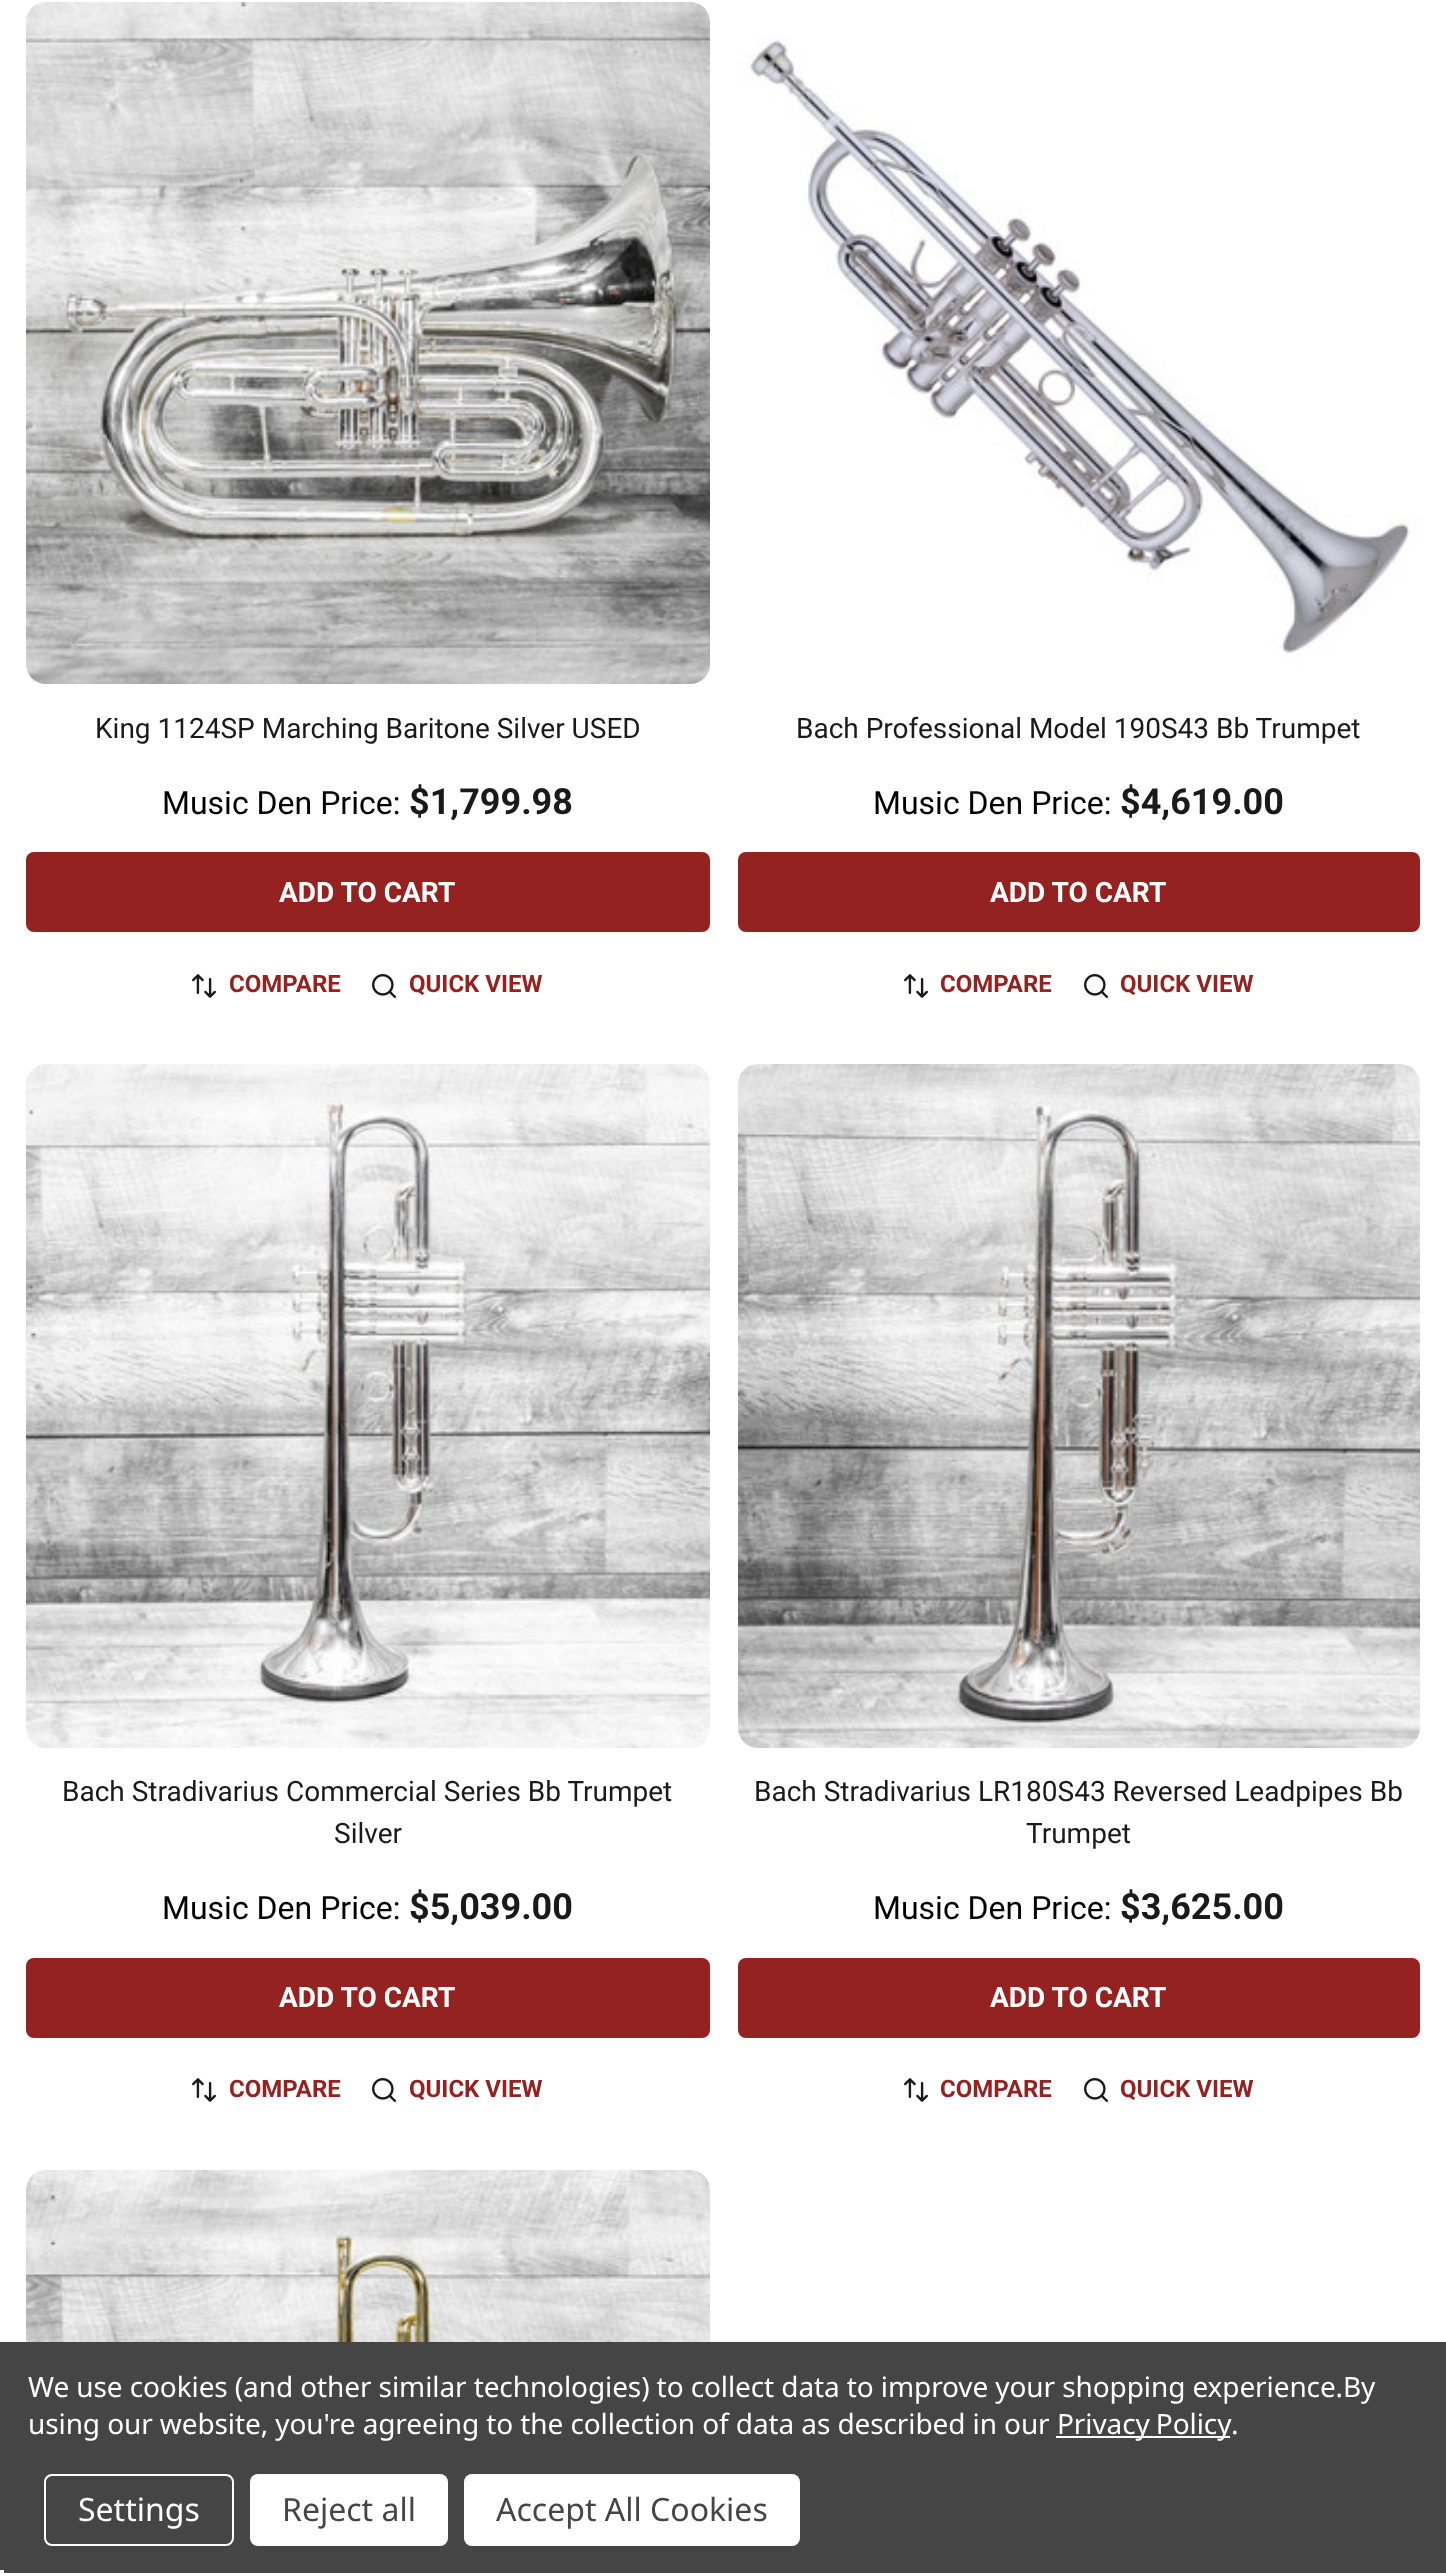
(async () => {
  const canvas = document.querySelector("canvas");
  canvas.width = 1446;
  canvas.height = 2573;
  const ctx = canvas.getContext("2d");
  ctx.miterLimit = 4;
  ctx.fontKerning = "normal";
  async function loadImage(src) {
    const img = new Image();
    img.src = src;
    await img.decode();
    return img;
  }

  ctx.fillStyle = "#ffffff";
  ctx.fillRect(0, 0, 1446, 2573);
  ctx.drawImage(await loadImage("img/1.png"), 26, 2, 684, 682);
  ctx.fillStyle = "#932221";
  ctx.beginPath();
  ctx.roundRect(26, 852, 684, 80, 8);
  ctx.fill();
  ctx.drawImage(await loadImage("img/2.png"), 192, 974, 24, 24);
  ctx.drawImage(await loadImage("img/3.png"), 372, 974, 24, 24);
  ctx.drawImage(await loadImage("img/4.png"), 741, 37, 679, 628);
  ctx.beginPath();
  ctx.roundRect(738, 852, 682, 80, 8);
  ctx.fill();
  ctx.drawImage(await loadImage("img/2.png"), 904, 974, 24, 24);
  ctx.drawImage(await loadImage("img/3.png"), 1084, 974, 24, 24);
  ctx.drawImage(await loadImage("img/5.png"), 26, 1064, 684, 684);
  ctx.beginPath();
  ctx.roundRect(26, 1958, 684, 80, 8);
  ctx.fill();
  ctx.drawImage(await loadImage("img/2.png"), 192, 2078, 24, 24);
  ctx.drawImage(await loadImage("img/3.png"), 372, 2078, 24, 24);
  ctx.drawImage(await loadImage("img/6.png"), 738, 1064, 682, 684);
  ctx.beginPath();
  ctx.roundRect(738, 1958, 682, 80, 8);
  ctx.fill();
  ctx.drawImage(await loadImage("img/2.png"), 904, 2078, 24, 24);
  ctx.drawImage(await loadImage("img/3.png"), 1084, 2078, 24, 24);
  ctx.drawImage(await loadImage("img/7.png"), 26, 2170, 684, 172);
  ctx.fillStyle = "#454545";
  ctx.fillRect(0, 2342, 1446, 231);
  ctx.fillStyle = "#ffffff";
  ctx.fillRect(1056, 2436, 174, 2);
  ctx.beginPath();
  ctx.roundRect(45, 2475, 188, 70, 7);
  ctx.strokeStyle = "#ffffff";
  ctx.lineWidth = 2;
  ctx.stroke();
  ctx.beginPath();
  ctx.roundRect(250, 2474, 198, 72, 8);
  ctx.fill();
  ctx.beginPath();
  ctx.roundRect(464, 2474, 336, 72, 8);
  ctx.fill();
  ctx.fillStyle = "#f5f5f5";
  ctx.fillRect(0, 2570, 4, 3);
  ctx.font = "28px Roboto";
  ctx.fillStyle = "#1a1a1a";
  ctx.fillText("King 1124SP Marching Baritone Silver USED", 95, 738);
  ctx.font = "32px Roboto";
  ctx.fillStyle = "#000000";
  ctx.fillText("Music Den Price:", 162, 814);
  ctx.font = "bold 36px Roboto";
  ctx.fillStyle = "#1a1a1a";
  ctx.fillText("$1,799.98", 409, 814);
  ctx.font = "bold 28px Roboto";
  ctx.fillStyle = "#ffffff";
  ctx.fillText("ADD TO CART", 279, 902);
  ctx.font = "bold 24px Roboto";
  ctx.fillStyle = "#932221";
  ctx.fillText("COMPARE", 229, 992);
  ctx.fillText("QUICK VIEW", 409, 992);
  ctx.font = "28px Roboto";
  ctx.fillStyle = "#1a1a1a";
  ctx.fillText("Bach Professional Model 190S43 Bb Trumpet", 796, 738);
  ctx.font = "32px Roboto";
  ctx.fillStyle = "#000000";
  ctx.fillText("Music Den Price:", 873, 814);
  ctx.font = "bold 36px Roboto";
  ctx.fillStyle = "#1a1a1a";
  ctx.fillText("$4,619.00", 1120, 814);
  ctx.font = "bold 28px Roboto";
  ctx.fillStyle = "#ffffff";
  ctx.fillText("ADD TO CART", 990, 902);
  ctx.font = "bold 24px Roboto";
  ctx.fillStyle = "#932221";
  ctx.fillText("COMPARE", 940, 992);
  ctx.fillText("QUICK VIEW", 1120, 992);
  ctx.font = "28px Roboto";
  ctx.fillStyle = "#1a1a1a";
  ctx.fillText("Bach Stradivarius Commercial Series Bb Trumpet", 62, 1801);
  ctx.fillText("Silver", 334, 1843);
  ctx.font = "32px Roboto";
  ctx.fillStyle = "#000000";
  ctx.fillText("Music Den Price:", 162, 1919);
  ctx.font = "bold 36px Roboto";
  ctx.fillStyle = "#1a1a1a";
  ctx.fillText("$5,039.00", 409, 1919);
  ctx.font = "bold 28px Roboto";
  ctx.fillStyle = "#ffffff";
  ctx.fillText("ADD TO CART", 279, 2007);
  ctx.font = "bold 24px Roboto";
  ctx.fillStyle = "#932221";
  ctx.fillText("COMPARE", 229, 2097);
  ctx.fillText("QUICK VIEW", 409, 2097);
  ctx.font = "28px Roboto";
  ctx.fillStyle = "#1a1a1a";
  ctx.fillText("Bach Stradivarius LR180S43 Reversed Leadpipes Bb", 754, 1801);
  ctx.fillText("Trumpet", 1026, 1843);
  ctx.font = "32px Roboto";
  ctx.fillStyle = "#000000";
  ctx.fillText("Music Den Price:", 873, 1919);
  ctx.font = "bold 36px Roboto";
  ctx.fillStyle = "#1a1a1a";
  ctx.fillText("$3,625.00", 1120, 1919);
  ctx.font = "bold 28px Roboto";
  ctx.fillStyle = "#ffffff";
  ctx.fillText("ADD TO CART", 990, 2007);
  ctx.font = "bold 24px Roboto";
  ctx.fillStyle = "#932221";
  ctx.fillText("COMPARE", 940, 2097);
  ctx.fillText("QUICK VIEW", 1120, 2097);
  ctx.letterSpacing = "-0.1px";
  ctx.font = "28px Noto Sans";
  ctx.fillStyle = "#ffffff";
  ctx.fillText("We use cookies (and other similar technologies) to collect data to improve your shopping experience.By", 28, 2397);
  ctx.fillText("using our website, you're agreeing to the collection of data as described in our", 28, 2434);
  ctx.wordSpacing = "-1px";
  ctx.fillText("Privacy Policy", 1057, 2434);
  ctx.wordSpacing = "0px";
  ctx.fillText(".", 1231, 2434);
  ctx.letterSpacing = "0px";
  ctx.font = "32px Noto Sans";
  ctx.fillText("Settings", 78, 2521);
  ctx.fillStyle = "#454545";
  ctx.fillText("Reject all", 282, 2521);
  ctx.fillText("Accept All Cookies", 496, 2521);
})();
